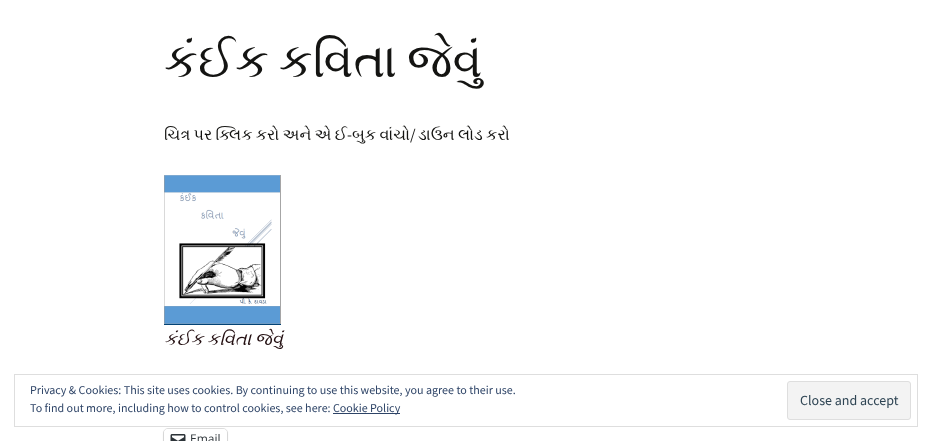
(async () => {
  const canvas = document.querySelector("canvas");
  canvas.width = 932;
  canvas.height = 441;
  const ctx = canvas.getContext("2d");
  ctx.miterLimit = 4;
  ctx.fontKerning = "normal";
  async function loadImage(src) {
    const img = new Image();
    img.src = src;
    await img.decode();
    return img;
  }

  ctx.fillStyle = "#ffffff";
  ctx.fillRect(0, 0, 932, 441);
  ctx.drawImage(await loadImage("img/1.png"), 164, 175, 117, 150);
  ctx.beginPath();
  ctx.roundRect(163.5, 428.5, 64, 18, 4.5);
  ctx.strokeStyle = "#e0e0e0";
  ctx.stroke();
  ctx.fillStyle = "rgba(0, 0, 0, 0.12)";
  ctx.filter = "blur(1px)";
  ctx.beginPath();
  ctx.roundRect(164, 430, 63, 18, 4);
  ctx.fill();
  ctx.filter = "none";
  ctx.fillStyle = "#ffffff";
  ctx.beginPath();
  ctx.roundRect(164, 429, 63, 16, 4);
  ctx.fill();
  ctx.drawImage(await loadImage("img/2.png"), 170, 434, 16, 7);
  ctx.strokeStyle = "#dedede";
  ctx.strokeRect(14.5, 374.5, 903, 52);
  ctx.fillStyle = "#2e4467";
  ctx.fillRect(333, 413, 67, 1);
  ctx.fillStyle = "#f3f3f3";
  ctx.beginPath();
  ctx.roundRect(787.5, 381.5, 123, 38, 2.5);
  ctx.fill();
  ctx.stroke();
  ctx.wordSpacing = "-2px";
  ctx.font = "48px FreeSerif";
  ctx.fillStyle = "#141412";
  ctx.fillText("કંઈક કવિતા જેવું", 164, 77);
  ctx.wordSpacing = "-0.75px";
  ctx.font = "16px FreeSerif";
  ctx.fillText("ચિત્ર પર ક્લિક કરો અને એ ઈ", 164, 140);
  ctx.wordSpacing = "0px";
  ctx.font = "16px Source Sans Pro";
  ctx.fillText("/", 410, 140);
  ctx.wordSpacing = "-0.75px";
  ctx.font = "16px FreeSerif";
  ctx.fillText("ડાઉન લોડ કરો", 418, 140);
  ctx.wordSpacing = "0px";
  ctx.font = "16px Source Sans Pro";
  ctx.fillText("-", 347, 140);
  ctx.wordSpacing = "-0.75px";
  ctx.font = "16px FreeSerif";
  ctx.fillText("બુક વાંચો", 352, 140);
  ctx.wordSpacing = "-1px";
  ctx.font = "italic 18px FreeSerif";
  ctx.fillStyle = "#220e10";
  ctx.fillText("કંઈક કવિતા જેવું", 164, 345);
  ctx.wordSpacing = "0px";
  ctx.font = "12px Open Sans";
  ctx.fillStyle = "#2c3338";
  ctx.fillText("Email", 190, 443);
  ctx.font = "12px Source Sans Pro";
  ctx.fillStyle = "#2e4467";
  for (const [text, x, y] of [
    ["Privacy & Cookies: This site uses cookies. By continuing to use this website, you agree to their use.", 30, 394],
    ["To find out more, including how to control cookies, see here:", 30, 412],
    ["Cookie Policy", 333, 412],
  ]) {
    ctx.fillText(text, x, y);
  }
  ctx.font = "14px Source Sans Pro";
  ctx.fillStyle = "#2e4453";
  ctx.fillText("Close and accept", 800, 405);
})();
